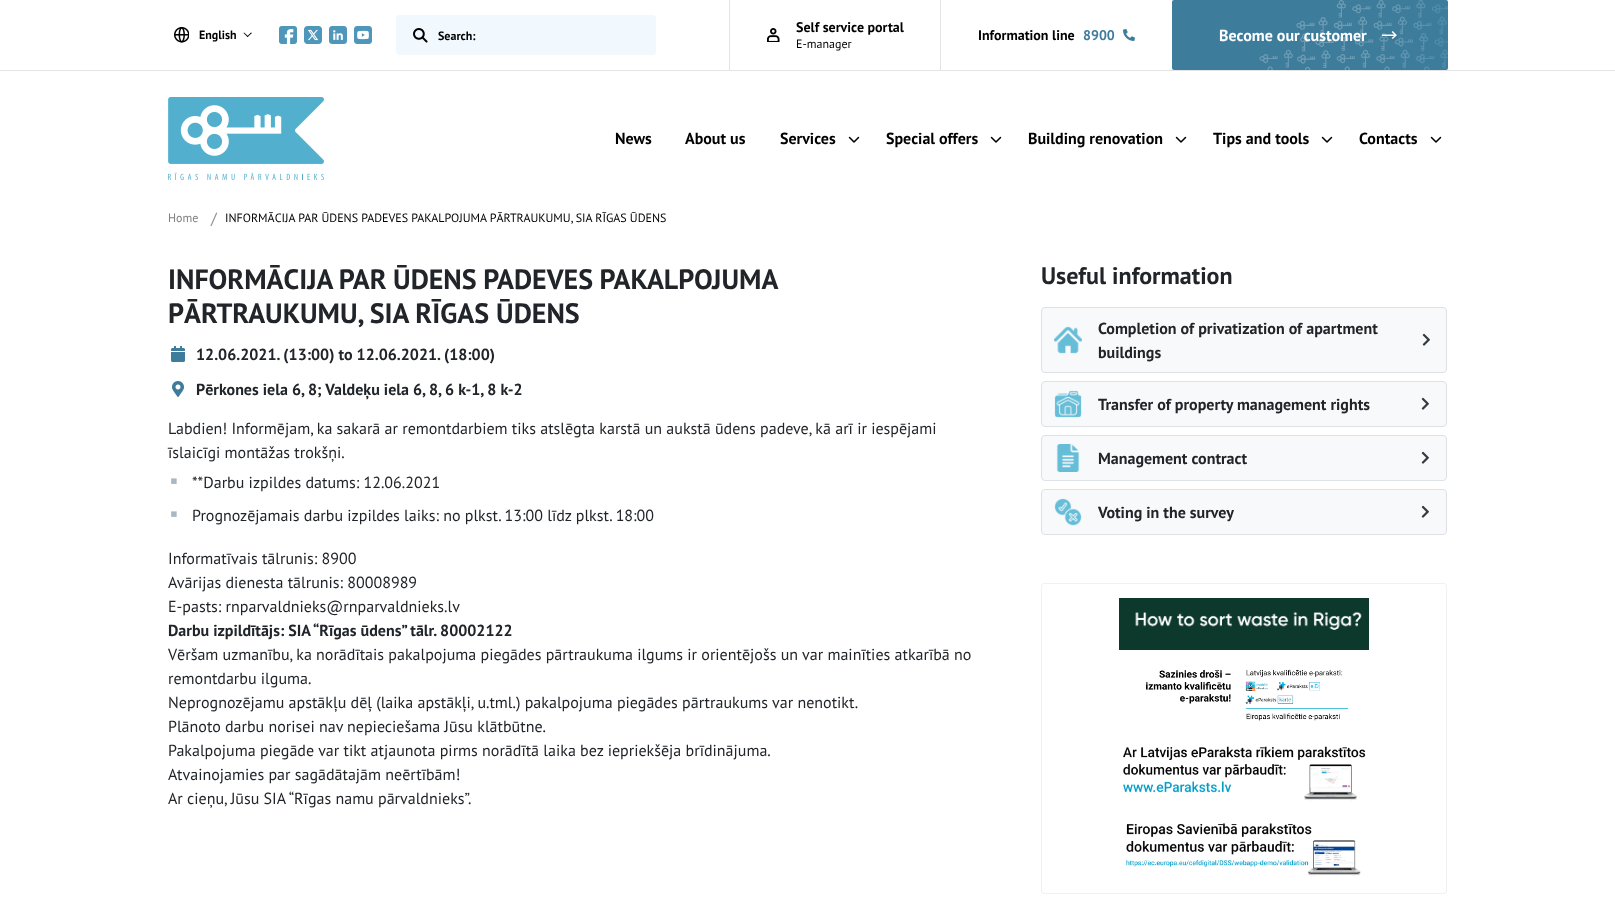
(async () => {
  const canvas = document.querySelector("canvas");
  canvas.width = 1615;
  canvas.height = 915;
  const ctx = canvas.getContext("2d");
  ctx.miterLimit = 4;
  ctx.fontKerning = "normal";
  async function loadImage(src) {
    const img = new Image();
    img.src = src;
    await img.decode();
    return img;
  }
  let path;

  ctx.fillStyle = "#ffffff";
  ctx.fillRect(0, 0, 1615, 915);
  ctx.fillStyle = "#e4e4e4";
  ctx.fillRect(0, 70, 1615, 1);
  ctx.fillRect(729, 0, 1, 70);
  ctx.drawImage(await loadImage("img/1.png"), 174, 27, 15, 16);
  ctx.fillStyle = "#000000";
  path = new Path2D("M252 33L247.5 37L247 36.5L251 32.5Z");
  ctx.fill(path);
  path = new Path2D("M248.5 36.5L247.5 37L243.5 33L244 32.5Z");
  ctx.fill(path);
  ctx.drawImage(await loadImage("img/2.png"), 279, 26, 18, 18);
  ctx.drawImage(await loadImage("img/3.png"), 304, 26, 18, 18);
  ctx.drawImage(await loadImage("img/4.png"), 329, 26, 18, 18);
  ctx.drawImage(await loadImage("img/5.png"), 354, 26, 18, 18);
  ctx.fillStyle = "#f1f9ff";
  ctx.beginPath();
  ctx.roundRect(396, 15, 260, 40, 3);
  ctx.fill();
  ctx.drawImage(await loadImage("img/6.png"), 413, 28, 15, 15);
  ctx.fillStyle = "#e4e4e4";
  ctx.fillRect(940, 0, 1, 70);
  ctx.drawImage(await loadImage("img/7.png"), 767, 28, 13, 14);
  ctx.drawImage(await loadImage("img/8.png"), 1123, 29, 12, 12);
  ctx.fillStyle = "#3e7c9b";
  ctx.beginPath();
  ctx.roundRect(1172, 0, 276, 70, 2);
  ctx.fill();
  ctx.drawImage(await loadImage("img/10.png"), 1382, 31, 15, 10);
  ctx.drawImage(await loadImage("img/11.png"), 168, 97, 156, 83);
  ctx.drawImage(await loadImage("img/12.png"), 848, 136, 12, 7);
  ctx.drawImage(await loadImage("img/12.png"), 990, 136, 12, 7);
  ctx.drawImage(await loadImage("img/12.png"), 1175, 136, 12, 7);
  ctx.drawImage(await loadImage("img/12.png"), 1321, 136, 12, 7);
  ctx.drawImage(await loadImage("img/12.png"), 1430, 136, 12, 7);
  ctx.drawImage(await loadImage("img/13.png"), 171, 346, 14, 16);
  ctx.drawImage(await loadImage("img/14.png"), 172, 381, 12, 16);
  ctx.fillStyle = "#f8f9fa";
  ctx.beginPath();
  ctx.roundRect(1041.5, 307.5, 405, 65, 3.5);
  ctx.fill();
  ctx.strokeStyle = "#dee2e6";
  ctx.stroke();
  ctx.drawImage(await loadImage("img/15.png"), 1054, 326, 28, 28);
  ctx.drawImage(await loadImage("img/16.png"), 1422, 333, 8, 13);
  ctx.beginPath();
  ctx.roundRect(1041.5, 381.5, 405, 45, 3.5);
  ctx.fill();
  ctx.stroke();
  ctx.drawImage(await loadImage("img/17.png"), 1054, 390, 28, 28);
  ctx.drawImage(await loadImage("img/16.png"), 1421, 397, 8, 13);
  ctx.beginPath();
  ctx.roundRect(1041.5, 435.5, 405, 45, 3.5);
  ctx.fill();
  ctx.stroke();
  ctx.drawImage(await loadImage("img/18.png"), 1056, 444, 24, 28);
  ctx.drawImage(await loadImage("img/16.png"), 1421, 451, 8, 13);
  ctx.beginPath();
  ctx.roundRect(1041.5, 489.5, 405, 45, 3.5);
  ctx.fill();
  ctx.stroke();
  ctx.drawImage(await loadImage("img/19.png"), 1054, 498, 28, 28);
  ctx.drawImage(await loadImage("img/16.png"), 1421, 505, 8, 13);
  ctx.beginPath();
  ctx.roundRect(1041.5, 583.5, 405, 310, 2.5);
  ctx.strokeStyle = "#eff2f5";
  ctx.stroke();
  ctx.drawImage(await loadImage("img/20.png"), 1119, 598, 250, 52);
  ctx.drawImage(await loadImage("img/21.png"), 1146, 669, 203, 52);
  ctx.drawImage(await loadImage("img/22.png"), 1123, 746, 243, 56);
  ctx.drawImage(await loadImage("img/23.png"), 1126, 823, 235, 54);
  ctx.font = "bold 12px PT Sans";
  ctx.fillStyle = "#000000";
  ctx.fillText("English", 199, 39);
  ctx.fillText("Search:", 438, 40);
  ctx.font = "bold 14px PT Sans";
  ctx.fillText("Self service portal", 796, 32);
  ctx.font = "12px PT Sans";
  ctx.fillText("E-manager", 796, 48);
  ctx.font = "bold 14px PT Sans";
  ctx.fillText("Information line", 978, 40);
  ctx.fillStyle = "#3e7c9b";
  ctx.fillText("8900", 1083, 40);
  ctx.font = "bold 16px PT Sans";
  ctx.fillStyle = "#ffffff";
  ctx.fillText("Become our customer", 1219, 41);
  ctx.drawImage(await loadImage("img/9.png"), 1259, 0, 189, 70);
  ctx.fillStyle = "#000000";
  for (const [text, x, y] of [
    ["News", 615, 144],
    ["About us", 685, 144],
    ["Services", 780, 144],
    ["Special offers", 886, 144],
    ["Building renovation", 1028, 144],
    ["Tips and tools", 1213, 144],
    ["Contacts", 1359, 144],
  ]) {
    ctx.fillText(text, x, y);
  }
  ctx.font = "12px PT Sans";
  ctx.fillStyle = "#808080";
  ctx.fillText("Home", 168, 222);
  ctx.font = "16px PT Sans";
  ctx.fillStyle = "#909294";
  ctx.fillText("/", 211, 224);
  ctx.font = "12px PT Sans";
  ctx.fillStyle = "#000000";
  ctx.fillText("INFORMĀCIJA PAR ŪDENS PADEVES PAKALPOJUMA PĀRTRAUKUMU, SIA RĪGAS ŪDENS", 225, 222);
  ctx.wordSpacing = "-0.5px";
  ctx.font = "bold 28px PT Sans";
  ctx.fillStyle = "#212529";
  ctx.fillText("INFORMĀCIJA PAR ŪDENS PADEVES PAKALPOJUMA", 168, 289);
  ctx.wordSpacing = "0px";
  ctx.fillText("PĀRTRAUKUMU, SIA RĪGAS ŪDENS", 168, 323);
  ctx.font = "bold 16px PT Sans";
  ctx.fillText("12.06.2021. (13:00) to 12.06.2021. (18:00)", 196, 360);
  ctx.fillText("Pērkones iela 6, 8; Valdeķu iela 6, 8, 6 k-1, 8 k-2", 196, 395);
  ctx.font = "16px PT Sans";
  ctx.fillText("Labdien! Informējam, ka sakarā ar remontdarbiem tiks atslēgta karstā un aukstā ūdens padeve, kā arī ir iespējami", 168, 434);
  ctx.fillText("īslaicīgi montāžas trokšņi.", 168, 458);
  ctx.font = "bold 22px Liberation Sans";
  ctx.fillStyle = "#a8b7c4";
  ctx.fillText("▪", 170, 488);
  ctx.font = "16px PT Sans";
  ctx.fillStyle = "#212529";
  ctx.fillText("**Darbu izpildes datums: 12.06.2021", 192, 488);
  ctx.font = "bold 22px Liberation Sans";
  ctx.fillStyle = "#a8b7c4";
  ctx.fillText("▪", 170, 521);
  ctx.font = "16px PT Sans";
  ctx.fillStyle = "#212529";
  for (const [text, x, y] of [
    ["Prognozējamais darbu izpildes laiks: no plkst. 13:00 līdz plkst. 18:00", 192, 521],
    ["Informatīvais tālrunis: 8900", 168, 564],
    ["Avārijas dienesta tālrunis: 80008989", 168, 588],
    ["E-pasts: rnparvaldnieks@rnparvaldnieks.lv", 168, 612],
  ]) {
    ctx.fillText(text, x, y);
  }
  ctx.font = "bold 16px PT Sans";
  ctx.fillText("Darbu izpildītājs: SIA “Rīgas ūdens” tālr. 80002122", 168, 636);
  ctx.font = "16px PT Sans";
  for (const [text, x, y] of [
    ["Vēršam uzmanību, ka norādītais pakalpojuma piegādes pārtraukuma ilgums ir orientējošs un var mainīties atkarībā no", 168, 660],
    ["remontdarbu ilguma.", 168, 684],
    ["Neprognozējamu apstākļu dēļ (laika apstākļi, u.tml.) pakalpojuma piegādes pārtraukums var nenotikt.", 168, 708],
    ["Plānoto darbu norisei nav nepieciešama Jūsu klātbūtne.", 168, 732],
    ["Pakalpojuma piegāde var tikt atjaunota pirms norādītā laika bez iepriekšēja brīdinājuma.", 168, 756],
    ["Atvainojamies par sagādātajām neērtībām!", 168, 780],
    ["Ar cieņu, Jūsu SIA “Rīgas namu pārvaldnieks”.", 168, 804],
  ]) {
    ctx.fillText(text, x, y);
  }
  ctx.font = "bold 24px PT Sans";
  ctx.fillText("Useful information", 1041, 284);
  ctx.font = "bold 16px PT Sans";
  for (const [text, x, y] of [
    ["Completion of privatization of apartment", 1098, 334],
    ["buildings", 1098, 358],
    ["Transfer of property management rights", 1098, 410],
    ["Management contract", 1098, 464],
    ["Voting in the survey", 1098, 518],
  ]) {
    ctx.fillText(text, x, y);
  }
})();
